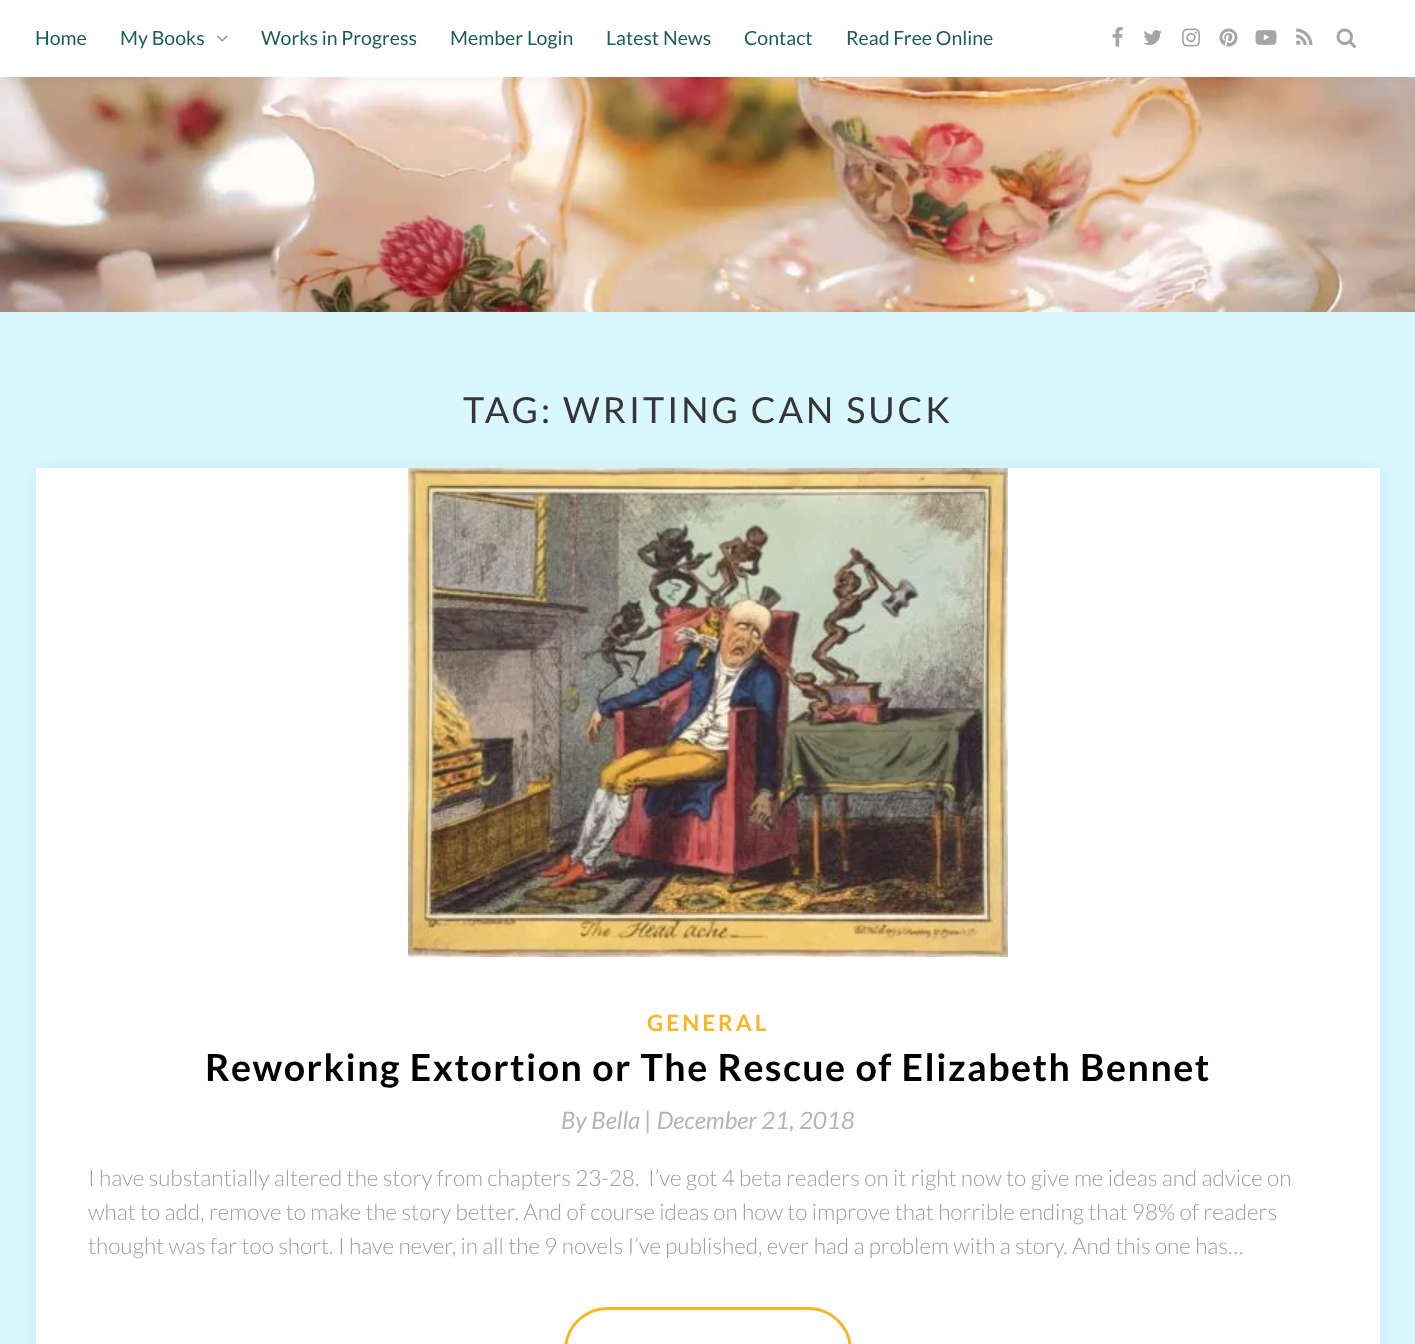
(async () => {
  const canvas = document.querySelector("canvas");
  canvas.width = 1415;
  canvas.height = 1344;
  const ctx = canvas.getContext("2d");
  ctx.miterLimit = 4;
  ctx.fontKerning = "normal";
  async function loadImage(src) {
    const img = new Image();
    img.src = src;
    await img.decode();
    return img;
  }

  ctx.fillStyle = "#d8f7ff";
  ctx.fillRect(0, 0, 1415, 1344);
  ctx.drawImage(await loadImage("img/1.png"), 0, 77, 1415, 235);
  ctx.fillStyle = "rgba(0, 0, 0, 0.05)";
  ctx.filter = "blur(7.5px)";
  ctx.beginPath();
  ctx.rect(0, 0, 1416, 77);
  ctx.fill();
  ctx.filter = "none";
  ctx.fillStyle = "#ffffff";
  ctx.fillRect(0, 0, 1415, 77);
  ctx.drawImage(await loadImage("img/2.png"), 216, 35, 12, 7);
  ctx.drawImage(await loadImage("img/3.png"), 1112, 27, 11, 20);
  ctx.drawImage(await loadImage("img/4.png"), 1143, 30, 19, 15);
  ctx.drawImage(await loadImage("img/5.png"), 1182, 28, 18, 19);
  ctx.drawImage(await loadImage("img/6.png"), 1219, 28, 19, 19);
  ctx.drawImage(await loadImage("img/7.png"), 1255, 30, 22, 15);
  ctx.drawImage(await loadImage("img/8.png"), 1296, 28, 17, 17);
  ctx.drawImage(await loadImage("img/9.png"), 1336, 28, 20, 20);
  ctx.fillStyle = "rgba(0, 0, 0, 0.05)";
  ctx.filter = "blur(11px)";
  ctx.beginPath();
  ctx.rect(36, 468, 1344, 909);
  ctx.fill();
  ctx.filter = "none";
  ctx.fillStyle = "#ffffff";
  ctx.fillRect(36, 468, 1344, 876);
  ctx.drawImage(await loadImage("img/10.png"), 408, 468, 600, 489);
  ctx.beginPath();
  ctx.roundRect(565.5, 1308.5, 285, 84, 45.5);
  ctx.strokeStyle = "#fab526";
  ctx.lineWidth = 3;
  ctx.stroke();
  ctx.font = "19.5px Lato";
  ctx.fillStyle = "#1d5d56";
  for (const [text, x, y] of [
    ["Home", 35, 45],
    ["My Books", 120, 45],
    ["Works in Progress", 261, 45],
    ["Member Login", 450, 45],
    ["Latest News", 606, 45],
    ["Contact", 744, 45],
    ["Read Free Online", 846, 45],
  ]) {
    ctx.fillText(text, x, y);
  }
  ctx.letterSpacing = "3px";
  ctx.font = "36px Lato";
  ctx.fillStyle = "#373535";
  ctx.fillText("TAG: WRITING CAN SUCK", 463, 423);
  ctx.font = "bold 22.5px Lato";
  ctx.fillStyle = "#fab526";
  ctx.fillText("GENERAL", 647, 1031);
  ctx.letterSpacing = "1.5px";
  ctx.font = "bold 37.5px Lato";
  ctx.fillStyle = "#000000";
  ctx.fillText("Reworking Extortion or The Rescue of Elizabeth Bennet", 205, 1081);
  ctx.letterSpacing = "0px";
  ctx.font = "italic 24px Lato";
  ctx.fillStyle = "#b5b5b5";
  ctx.fillText("By Bella | December 21, 2018", 561, 1129);
  ctx.font = "300 22.5px Lato";
  ctx.fillStyle = "#9c9c9c";
  for (const [text, x, y] of [
    ["I have substantially altered the story from chapters 23-28.  I’ve got 4 beta readers on it right now to give me ideas and advice on", 88, 1186],
    ["what to add, remove to make the story better. And of course ideas on how to improve that horrible ending that 98% of readers", 88, 1220],
    ["thought was far too short. I have never, in all the 9 novels I’ve published, ever had a problem with a story. And this one has…", 88, 1254],
  ]) {
    ctx.fillText(text, x, y);
  }
})();
